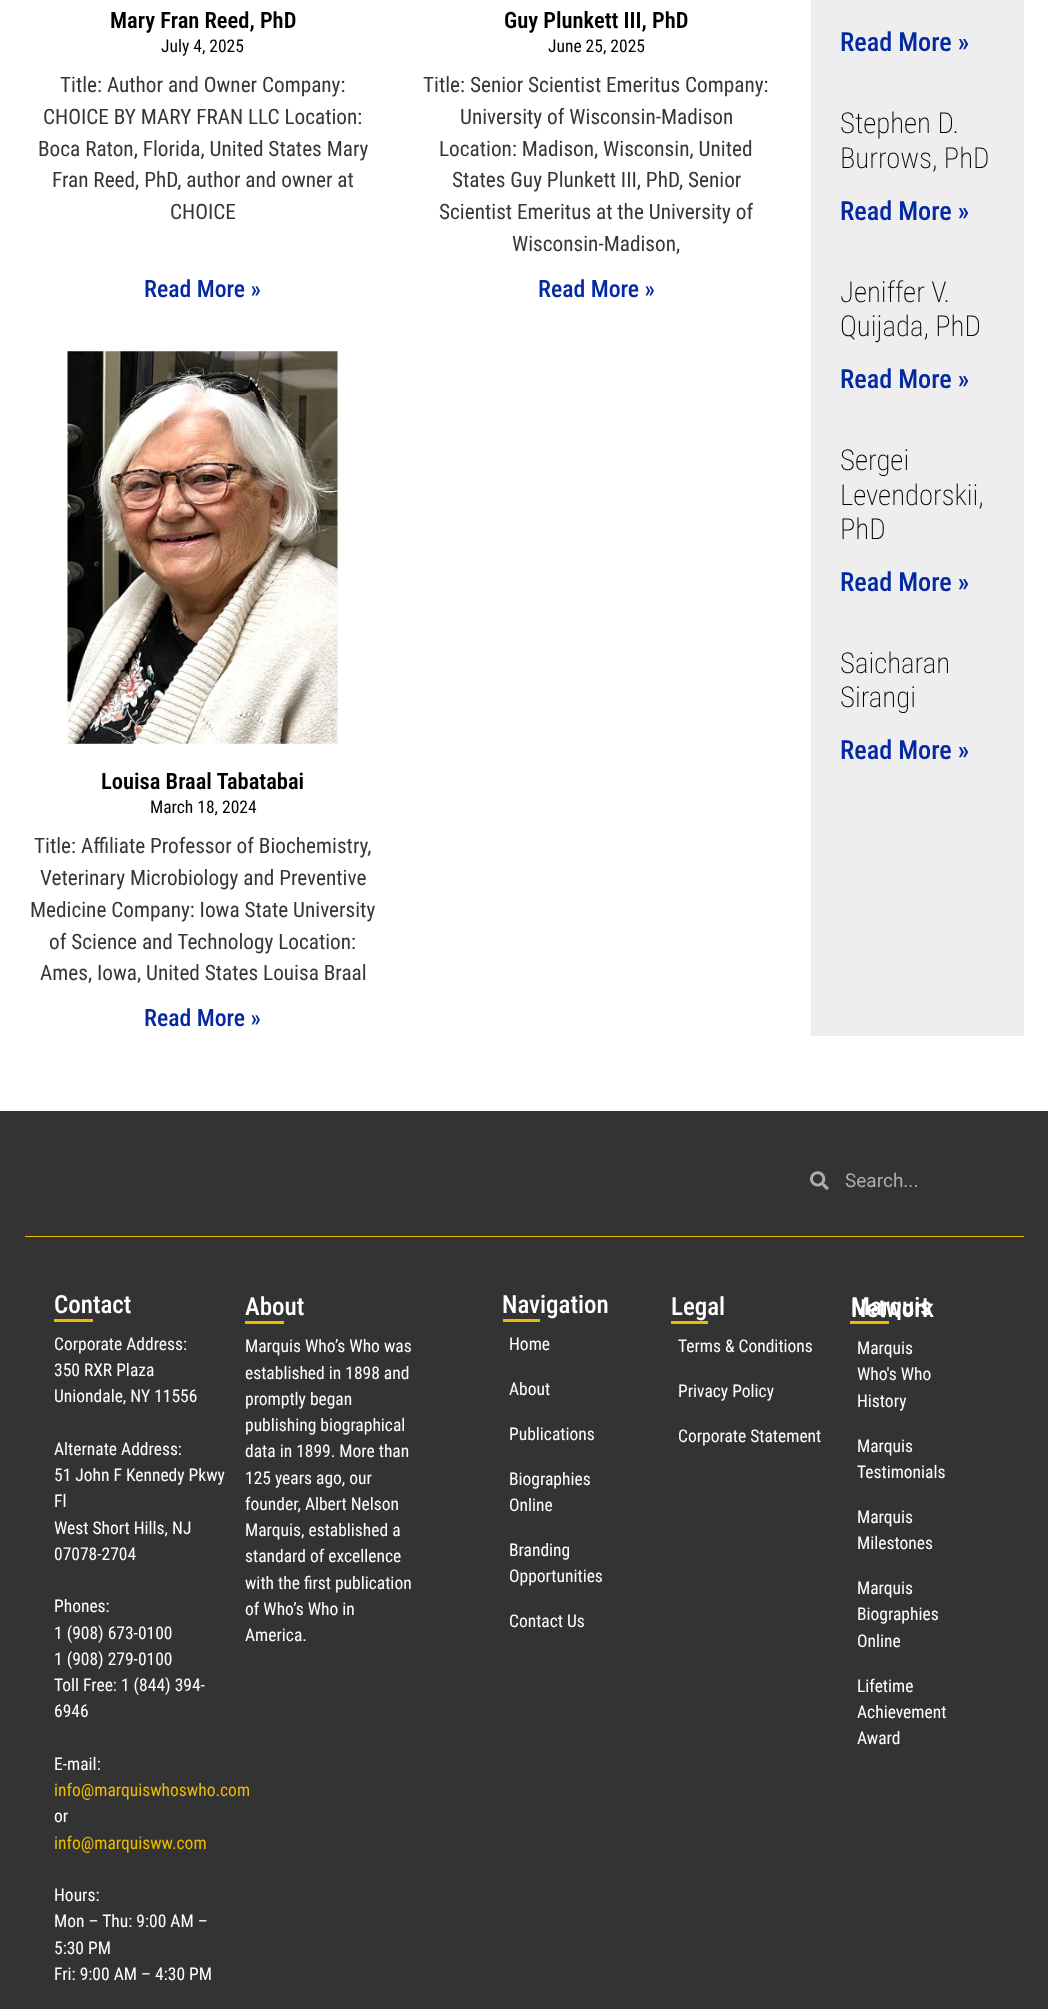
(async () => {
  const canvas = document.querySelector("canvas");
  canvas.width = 1048;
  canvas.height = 2009;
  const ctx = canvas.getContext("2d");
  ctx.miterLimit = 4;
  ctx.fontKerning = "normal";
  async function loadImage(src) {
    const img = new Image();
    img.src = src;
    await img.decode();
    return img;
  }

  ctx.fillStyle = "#ffffff";
  ctx.fillRect(0, 0, 1048, 2009);
  ctx.drawImage(await loadImage("img/1.png"), 67, 351, 271, 393);
  ctx.fillStyle = "#eeeeee";
  ctx.fillRect(811, 0, 213, 1036);
  ctx.fillStyle = "#333333";
  ctx.fillRect(0, 1111, 1048, 898);
  ctx.drawImage(await loadImage("img/2.png"), 810, 1171, 19, 19);
  for (const [x, y, w, h, color] of [
    [25, 1236, 999, 1, "#ebbc00"],
    [54, 1319, 39, 3, "#ebbc00"],
    [245, 1321, 39, 3, "#ebbc00"],
    [503, 1319, 37, 3, "#ebbc00"],
    [671, 1321, 37, 3, "#ebbc00"],
    [850, 1321, 39, 3, "#ebbc00"],
  ]) {
    ctx.fillStyle = color;
    ctx.fillRect(x, y, w, h);
  }
  ctx.font = "600 22.5px Roboto Condensed";
  ctx.fillStyle = "#000000";
  ctx.fillText("Mary Fran Reed, PhD", 110, 28);
  ctx.font = "17.5px Roboto Condensed";
  ctx.fillText("July 4, 2025", 161, 52);
  ctx.font = "21.25px Roboto Condensed";
  ctx.fillStyle = "#363636";
  for (const [text, x, y] of [
    ["Title: Author and Owner Company:", 60, 92],
    ["CHOICE BY MARY FRAN LLC Location:", 43, 124],
    ["Boca Raton, Florida, United States Mary", 38, 156],
    ["Fran Reed, PhD, author and owner at", 52, 187],
    ["CHOICE", 170, 219],
  ]) {
    ctx.fillText(text, x, y);
  }
  ctx.font = "500 23.75px Roboto Condensed";
  ctx.fillStyle = "#0429a3";
  ctx.fillText("Read More »", 144, 297);
  ctx.font = "600 22.5px Roboto Condensed";
  ctx.fillStyle = "#000000";
  ctx.fillText("Guy Plunkett III, PhD", 504, 28);
  ctx.font = "17.5px Roboto Condensed";
  ctx.fillText("June 25, 2025", 548, 52);
  ctx.font = "21.25px Roboto Condensed";
  ctx.fillStyle = "#363636";
  for (const [text, x, y] of [
    ["Title: Senior Scientist Emeritus Company:", 423, 92],
    ["University of Wisconsin-Madison", 460, 124],
    ["Location: Madison, Wisconsin, United", 439, 156],
    ["States Guy Plunkett III, PhD, Senior", 452, 187],
    ["Scientist Emeritus at the University of", 439, 219],
    ["Wisconsin-Madison,", 512, 251],
  ]) {
    ctx.fillText(text, x, y);
  }
  ctx.font = "500 23.75px Roboto Condensed";
  ctx.fillStyle = "#0429a3";
  ctx.fillText("Read More »", 538, 297);
  ctx.font = "600 22.5px Roboto Condensed";
  ctx.fillStyle = "#000000";
  ctx.fillText("Louisa Braal Tabatabai", 101, 789);
  ctx.font = "17.5px Roboto Condensed";
  ctx.fillText("March 18, 2024", 150, 813);
  ctx.font = "21.25px Roboto Condensed";
  ctx.fillStyle = "#363636";
  for (const [text, x, y] of [
    ["Title: Affiliate Professor of Biochemistry,", 34, 853],
    ["Veterinary Microbiology and Preventive", 40, 885],
    ["Medicine Company: Iowa State University", 30, 917],
    ["of Science and Technology Location:", 49, 949],
    ["Ames, Iowa, United States Louisa Braal", 40, 980],
  ]) {
    ctx.fillText(text, x, y);
  }
  ctx.font = "500 23.75px Roboto Condensed";
  ctx.fillStyle = "#0429a3";
  ctx.fillText("Read More »", 144, 1026);
  ctx.font = "500 26.25px Roboto Condensed";
  ctx.fillText("Read More »", 840, 51);
  ctx.font = "200 28.75px Roboto Condensed";
  ctx.fillStyle = "#000000";
  ctx.fillText("Stephen D.", 840, 133);
  ctx.fillText("Burrows, PhD", 840, 168);
  ctx.font = "500 26.25px Roboto Condensed";
  ctx.fillStyle = "#0429a3";
  ctx.fillText("Read More »", 840, 220);
  ctx.font = "200 28.75px Roboto Condensed";
  ctx.fillStyle = "#000000";
  ctx.fillText("Jeniffer V.", 840, 302);
  ctx.fillText("Quijada, PhD", 840, 336);
  ctx.font = "500 26.25px Roboto Condensed";
  ctx.fillStyle = "#0429a3";
  ctx.fillText("Read More »", 840, 388);
  ctx.font = "200 28.75px Roboto Condensed";
  ctx.fillStyle = "#000000";
  for (const [text, x, y] of [
    ["Sergei", 840, 470],
    ["Levendorskii,", 840, 505],
    ["PhD", 840, 539],
  ]) {
    ctx.fillText(text, x, y);
  }
  ctx.font = "500 26.25px Roboto Condensed";
  ctx.fillStyle = "#0429a3";
  ctx.fillText("Read More »", 840, 591);
  ctx.font = "200 28.75px Roboto Condensed";
  ctx.fillStyle = "#000000";
  ctx.fillText("Saicharan", 840, 673);
  ctx.fillText("Sirangi", 840, 707);
  ctx.font = "500 26.25px Roboto Condensed";
  ctx.fillStyle = "#0429a3";
  ctx.fillText("Read More »", 840, 759);
  ctx.font = "19px Roboto";
  ctx.fillStyle = "#adadad";
  ctx.fillText("Search...", 845, 1187);
  ctx.font = "500 25px Roboto Condensed";
  ctx.fillStyle = "#ffffff";
  ctx.fillText("Contact", 54, 1313);
  ctx.font = "17.5px Roboto Condensed";
  for (const [text, x, y] of [
    ["Corporate Address:", 54, 1350],
    ["350 RXR Plaza", 54, 1376],
    ["Uniondale, NY 11556", 54, 1402],
    ["Alternate Address:", 54, 1455],
    ["51 John F Kennedy Pkwy", 54, 1481],
    ["Fl", 54, 1507],
    ["West Short Hills, NJ", 54, 1534],
    ["07078-2704", 54, 1560],
    ["Phones:", 54, 1612],
    ["1 (908) 673-0100", 54, 1639],
    ["1 (908) 279-0100", 54, 1665],
    ["Toll Free: 1 (844) 394-", 54, 1691],
    ["6946", 54, 1717],
    ["E-mail:", 54, 1770],
  ]) {
    ctx.fillText(text, x, y);
  }
  ctx.fillStyle = "#ebbc00";
  ctx.fillText("info@marquiswhoswho.com", 54, 1796);
  ctx.fillStyle = "#ffffff";
  ctx.fillText("or", 54, 1822);
  ctx.fillStyle = "#ebbc00";
  ctx.fillText("info@marquisww.com", 54, 1849);
  ctx.fillStyle = "#ffffff";
  for (const [text, x, y] of [
    ["Hours:", 54, 1901],
    ["Mon – Thu: 9:00 AM –", 54, 1927],
    ["5:30 PM", 54, 1954],
    ["Fri: 9:00 AM – 4:30 PM", 54, 1980],
  ]) {
    ctx.fillText(text, x, y);
  }
  ctx.font = "500 25px Roboto Condensed";
  ctx.fillText("About", 245, 1315);
  ctx.font = "17.5px Roboto Condensed";
  for (const [text, x, y] of [
    ["Marquis Who’s Who was", 245, 1352],
    ["established in 1898 and", 245, 1379],
    ["promptly began", 245, 1405],
    ["publishing biographical", 245, 1431],
    ["data in 1899. More than", 245, 1457],
    ["125 years ago, our", 245, 1484],
    ["founder, Albert Nelson", 245, 1510],
    ["Marquis, established a", 245, 1536],
    ["standard of excellence", 245, 1562],
    ["with the first publication", 245, 1589],
    ["of Who’s Who in", 245, 1615],
    ["America.", 245, 1641],
  ]) {
    ctx.fillText(text, x, y);
  }
  ctx.font = "500 25px Roboto Condensed";
  ctx.fillText("Navigation", 502, 1313);
  ctx.font = "17.5px Roboto Condensed";
  for (const [text, x, y] of [
    ["Home", 509, 1350],
    ["About", 509, 1395],
    ["Publications", 509, 1440],
    ["Biographies", 509, 1485],
    ["Online", 509, 1511],
    ["Branding", 509, 1556],
    ["Opportunities", 509, 1582],
    ["Contact Us", 509, 1627],
  ]) {
    ctx.fillText(text, x, y);
  }
  ctx.font = "500 25px Roboto Condensed";
  ctx.fillText("Legal", 671, 1315);
  ctx.font = "17.5px Roboto Condensed";
  for (const [text, x, y] of [
    ["Terms & Conditions", 678, 1352],
    ["Privacy Policy", 678, 1397],
    ["Corporate Statement", 678, 1442],
  ]) {
    ctx.fillText(text, x, y);
  }
  ctx.font = "500 25px Roboto Condensed";
  ctx.fillText("Marquis", 851, 1315);
  ctx.fillText("Network", 851, 1317);
  ctx.font = "17.5px Roboto Condensed";
  for (const [text, x, y] of [
    ["Marquis", 857, 1354],
    ["Who's Who", 857, 1380],
    ["History", 857, 1407],
    ["Marquis", 857, 1452],
    ["Testimonials", 857, 1478],
    ["Marquis", 857, 1523],
    ["Milestones", 857, 1549],
    ["Marquis", 857, 1594],
    ["Biographies", 857, 1620],
    ["Online", 857, 1647],
    ["Lifetime", 857, 1692],
    ["Achievement", 857, 1718],
    ["Award", 857, 1744],
  ]) {
    ctx.fillText(text, x, y);
  }
})();
